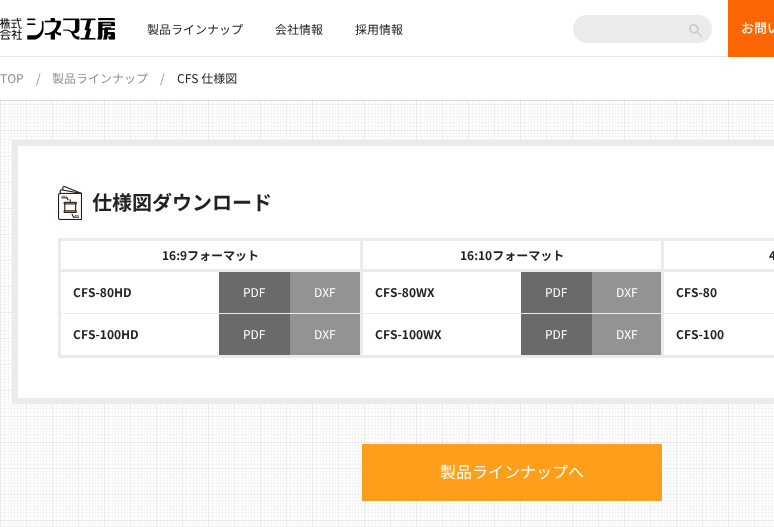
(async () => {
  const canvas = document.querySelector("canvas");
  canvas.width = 774;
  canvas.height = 527;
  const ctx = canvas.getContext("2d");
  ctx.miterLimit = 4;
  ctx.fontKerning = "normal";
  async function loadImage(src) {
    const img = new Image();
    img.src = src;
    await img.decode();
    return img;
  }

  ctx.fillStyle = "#ffffff";
  ctx.fillRect(0, 0, 774, 527);
  ctx.fillStyle = "#e7e7e7";
  ctx.fillRect(0, 56, 728, 1);
  ctx.drawImage(await loadImage("img/1.png"), 0, 18, 115, 22);
  ctx.fillStyle = "#ebebeb";
  ctx.beginPath();
  ctx.roundRect(573, 15, 139, 28, 14);
  ctx.fill();
  ctx.drawImage(await loadImage("img/2.png"), 689, 24, 13, 13);
  ctx.fillStyle = "#fc6703";
  ctx.fillRect(728, 0, 46, 57);
  ctx.drawImage(await loadImage("img/3.png"), 0, 100, 774, 427);
  ctx.fillStyle = "rgba(184, 184, 184, 0.4)";
  ctx.fillRect(0, 100, 774, 1);
  ctx.fillStyle = "#ffffff";
  ctx.beginPath();
  ctx.rect(15, 143, 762, 258);
  ctx.fill();
  ctx.strokeStyle = "#ebebeb";
  ctx.lineWidth = 6;
  ctx.stroke();
  ctx.drawImage(await loadImage("img/4.png"), 58, 186, 24, 34);
  for (const [x, y, w, h, color] of [
    [58, 238, 716, 3, "#ebebeb"],
    [58, 355, 716, 3, "#ebebeb"],
    [59, 313, 715, 1, "#ebebeb"],
    [58, 238, 3, 120, "#ebebeb"],
    [661, 269, 3, 89, "#ebebeb"],
    [661, 269, 113, 3, "#ebebeb"],
    [661, 238, 3, 34, "#ebebeb"],
    [360, 269, 3, 89, "#ebebeb"],
    [360, 269, 304, 3, "#ebebeb"],
    [360, 238, 3, 34, "#ebebeb"],
    [58, 269, 305, 3, "#ebebeb"],
    [219, 272, 71, 41, "#6a6a6a"],
    [290, 272, 70, 41, "#939393"],
    [521, 272, 71, 41, "#6a6a6a"],
    [592, 272, 69, 41, "#939393"],
    [219, 314, 71, 41, "#6a6a6a"],
    [290, 314, 70, 41, "#939393"],
    [521, 314, 71, 41, "#6a6a6a"],
    [592, 314, 69, 41, "#939393"],
    [362, 444, 300, 57, "#fe9e1a"],
  ]) {
    ctx.fillStyle = color;
    ctx.fillRect(x, y, w, h);
  }
  ctx.font = "12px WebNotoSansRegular";
  ctx.fillStyle = "#222222";
  for (const [text, x, y] of [
    ["製品ラインナップ", 147, 34],
    ["会社情報", 275, 34],
    ["採用情報", 355, 34],
  ]) {
    ctx.fillText(text, x, y);
  }
  ctx.font = "500 13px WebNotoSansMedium";
  ctx.fillStyle = "#ffffff";
  ctx.fillText("お問い", 741, 33);
  ctx.font = "12px WebNotoSansRegular";
  ctx.fillStyle = "#8f8f91";
  for (const [text, x, y] of [
    ["TOP", 0, 83],
    ["/", 36, 83],
    ["製品ラインナップ", 52, 83],
    ["/", 160, 83],
  ]) {
    ctx.fillText(text, x, y);
  }
  ctx.fillStyle = "#222222";
  ctx.fillText("CFS 仕様図", 177, 83);
  ctx.font = "bold 20px Noto Sans CJK JP";
  ctx.fillText("仕様図ダウンロード", 92, 210);
  ctx.font = "bold 12px Noto Sans CJK JP";
  for (const [text, x, y] of [
    ["16:9フォーマット", 162, 260],
    ["16:10フォーマット", 460, 260],
    ["4", 769, 260],
    ["CFS-80HD", 73, 297],
  ]) {
    ctx.fillText(text, x, y);
  }
  ctx.font = "12px WebNotoSansRegular";
  ctx.fillStyle = "#ffffff";
  ctx.fillText("PDF", 243, 297);
  ctx.fillText("DXF", 314, 297);
  ctx.font = "bold 12px Noto Sans CJK JP";
  ctx.fillStyle = "#222222";
  ctx.fillText("CFS-80WX", 375, 297);
  ctx.font = "12px WebNotoSansRegular";
  ctx.fillStyle = "#ffffff";
  ctx.fillText("PDF", 545, 297);
  ctx.fillText("DXF", 616, 297);
  ctx.font = "bold 12px Noto Sans CJK JP";
  ctx.fillStyle = "#222222";
  ctx.fillText("CFS-80", 676, 297);
  ctx.fillText("CFS-100HD", 73, 339);
  ctx.font = "12px WebNotoSansRegular";
  ctx.fillStyle = "#ffffff";
  ctx.fillText("PDF", 243, 339);
  ctx.fillText("DXF", 314, 339);
  ctx.font = "bold 12px Noto Sans CJK JP";
  ctx.fillStyle = "#222222";
  ctx.fillText("CFS-100WX", 375, 339);
  ctx.font = "12px WebNotoSansRegular";
  ctx.fillStyle = "#ffffff";
  ctx.fillText("PDF", 545, 339);
  ctx.fillText("DXF", 616, 339);
  ctx.font = "bold 12px Noto Sans CJK JP";
  ctx.fillStyle = "#222222";
  ctx.fillText("CFS-100", 676, 339);
  ctx.font = "16px WebNotoSansRegular";
  ctx.fillStyle = "#ffffff";
  ctx.fillText("製品ラインナップへ", 440, 478);
})();
